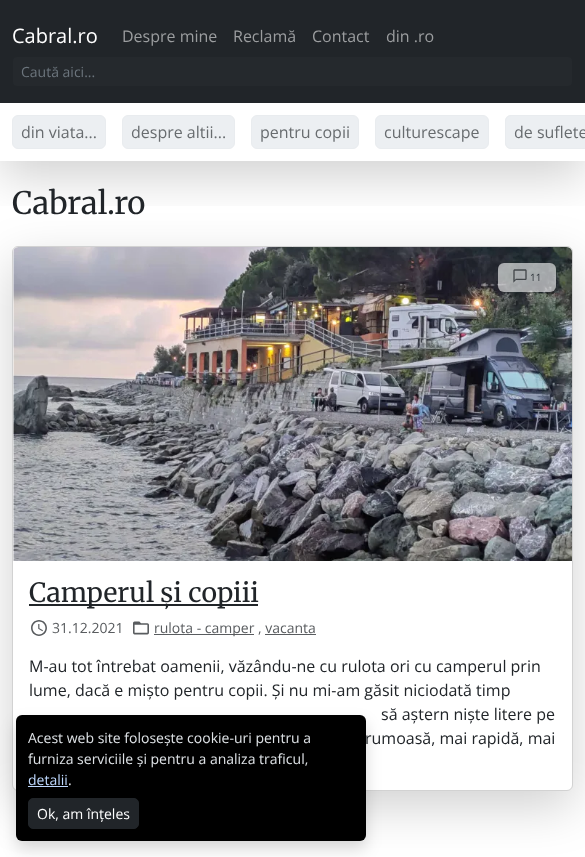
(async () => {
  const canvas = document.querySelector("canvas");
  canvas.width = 585;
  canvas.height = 857;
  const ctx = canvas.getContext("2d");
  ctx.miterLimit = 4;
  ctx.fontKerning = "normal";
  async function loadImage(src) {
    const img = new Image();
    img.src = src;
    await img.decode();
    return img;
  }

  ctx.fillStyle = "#ffffff";
  ctx.fillRect(0, 0, 585, 857);
  ctx.save();
  ctx.beginPath();
  ctx.rect(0, 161, 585, 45);
  ctx.clip();
  ctx.fillStyle = "rgba(0, 0, 0, 0.18)";
  ctx.filter = "blur(24px)";
  ctx.beginPath();
  ctx.rect(0, 16, 585, 161);
  ctx.fill();
  ctx.filter = "none";
  ctx.restore();
  ctx.fillStyle = "#212529";
  ctx.fillRect(0, 0, 585, 103);
  ctx.fillStyle = "#25292d";
  ctx.beginPath();
  ctx.roundRect(13, 57, 559, 29, 4);
  ctx.fill();
  ctx.fillStyle = "#eceff2";
  ctx.beginPath();
  ctx.roundRect(12.5, 115.5, 93, 33, 5.5);
  ctx.fill();
  ctx.strokeStyle = "#e9ecef";
  ctx.stroke();
  ctx.beginPath();
  ctx.roundRect(122.5, 115.5, 112, 33, 5.5);
  ctx.fill();
  ctx.stroke();
  ctx.beginPath();
  ctx.roundRect(251.5, 115.5, 107, 33, 5.5);
  ctx.fill();
  ctx.stroke();
  ctx.beginPath();
  ctx.roundRect(375.5, 115.5, 113, 33, 5.5);
  ctx.fill();
  ctx.stroke();
  ctx.beginPath();
  ctx.roundRect(505, 115, 80, 34, [6, 0, 0, 6]);
  ctx.fill();
  ctx.beginPath();
  ctx.roundRect(505.5, 115.5, 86, 33, 5.5);
  ctx.stroke();
  ctx.fillStyle = "rgba(0, 0, 0, 0.18)";
  ctx.filter = "blur(24px)";
  ctx.beginPath();
  ctx.roundRect(12, 262, 561, 545, 6);
  ctx.fill();
  ctx.filter = "none";
  ctx.fillStyle = "#ffffff";
  ctx.beginPath();
  ctx.roundRect(12.5, 246.5, 560, 544, 5.5);
  ctx.fill();
  ctx.strokeStyle = "#d2d2d2";
  ctx.stroke();
  ctx.drawImage(await loadImage("img/1.png"), 13, 247, 559, 314);
  ctx.fillStyle = "rgba(255, 255, 255, 0.6)";
  ctx.beginPath();
  ctx.roundRect(498, 263, 58, 29, 6);
  ctx.fill();
  ctx.drawImage(await loadImage("img/2.png"), 513, 269, 14, 14);
  ctx.fillStyle = "#212529";
  ctx.fillRect(29, 604, 229, 2);
  ctx.drawImage(await loadImage("img/3.png"), 31, 620, 16, 16);
  ctx.drawImage(await loadImage("img/4.png"), 133, 621, 16, 14);
  ctx.fillStyle = "#595c5f";
  ctx.fillRect(154, 634, 100, 1);
  ctx.fillRect(265, 634, 51, 1);
  ctx.fillStyle = "rgba(0, 0, 0, 0.15)";
  ctx.filter = "blur(8px)";
  ctx.beginPath();
  ctx.roundRect(16, 723, 350, 126, 6);
  ctx.fill();
  ctx.filter = "none";
  ctx.font = "20px Open Sans";
  ctx.fillStyle = "#ffffff";
  ctx.fillText("Cabral.ro", 12, 43);
  ctx.font = "16px Open Sans";
  ctx.fillStyle = "#9b9d9f";
  for (const [text, x, y] of [
    ["Despre mine", 122, 42],
    ["Reclamă", 233, 42],
    ["Contact", 312, 42],
    ["din .ro", 386, 42],
  ]) {
    ctx.fillText(text, x, y);
  }
  ctx.font = "14px Open Sans";
  ctx.fillStyle = "#6c757d";
  ctx.fillText("Caută aici...", 21, 77);
  ctx.font = "16px Open Sans";
  ctx.fillStyle = "#686c6f";
  for (const [text, x, y] of [
    ["din viata...", 21, 138],
    ["despre altii...", 131, 138],
    ["pentru copii", 260, 138],
    ["culturescape", 384, 138],
    ["de suflete", 514, 138],
  ]) {
    ctx.fillText(text, x, y);
  }
  ctx.font = "31px Merriweather";
  ctx.fillStyle = "#212529";
  ctx.fillText("Cabral.ro", 12, 214);
  ctx.font = "10px Open Sans";
  ctx.fillStyle = "#343a40";
  ctx.fillText("11", 530, 281);
  ctx.font = "26.5px Merriweather";
  ctx.fillStyle = "#212529";
  ctx.fillText("Camperul și copiii", 29, 602);
  ctx.font = "14px Open Sans";
  ctx.fillStyle = "#595c5f";
  for (const [text, x, y] of [
    ["31.12.2021", 52, 633],
    ["rulota - camper", 154, 633],
    [", vacanta", 258, 633],
  ]) {
    ctx.fillText(text, x, y);
  }
  ctx.font = "16px Open Sans";
  ctx.fillStyle = "#212529";
  for (const [text, x, y] of [
    ["M-au tot întrebat oamenii, văzându-ne cu rulota ori cu camperul prin", 29, 672],
    ["lume, dacă e mișto pentru copii. Și nu mi-am găsit niciodată timp", 29, 696],
    ["să aștern niște litere pe", 381, 720],
    ["rumoasă, mai rapidă, mai", 365, 744],
  ]) {
    ctx.fillText(text, x, y);
  }
  ctx.fillStyle = "#000000";
  ctx.beginPath();
  ctx.roundRect(16, 715, 350, 126, 6);
  ctx.fill();
  ctx.font = "14px Open Sans";
  ctx.fillStyle = "#dee2e6";
  ctx.fillText("Acest web site folosește cookie-uri pentru a", 28, 743);
  ctx.fillText("furniza serviciile și pentru a analiza traficul,", 28, 764);
  ctx.fillStyle = "#bed8fe";
  ctx.fillText("detalii", 28, 785);
  ctx.fillRect(28, 786, 40, 1);
  ctx.fillStyle = "#dee2e6";
  ctx.fillText(".", 68, 785);
  ctx.fillStyle = "#212529";
  ctx.beginPath();
  ctx.roundRect(28.5, 798.5, 110, 30, 4.5);
  ctx.fill();
  ctx.strokeStyle = "#212529";
  ctx.stroke();
  ctx.fillStyle = "#ffffff";
  ctx.fillText("Ok, am înțeles", 37, 819);
})();
